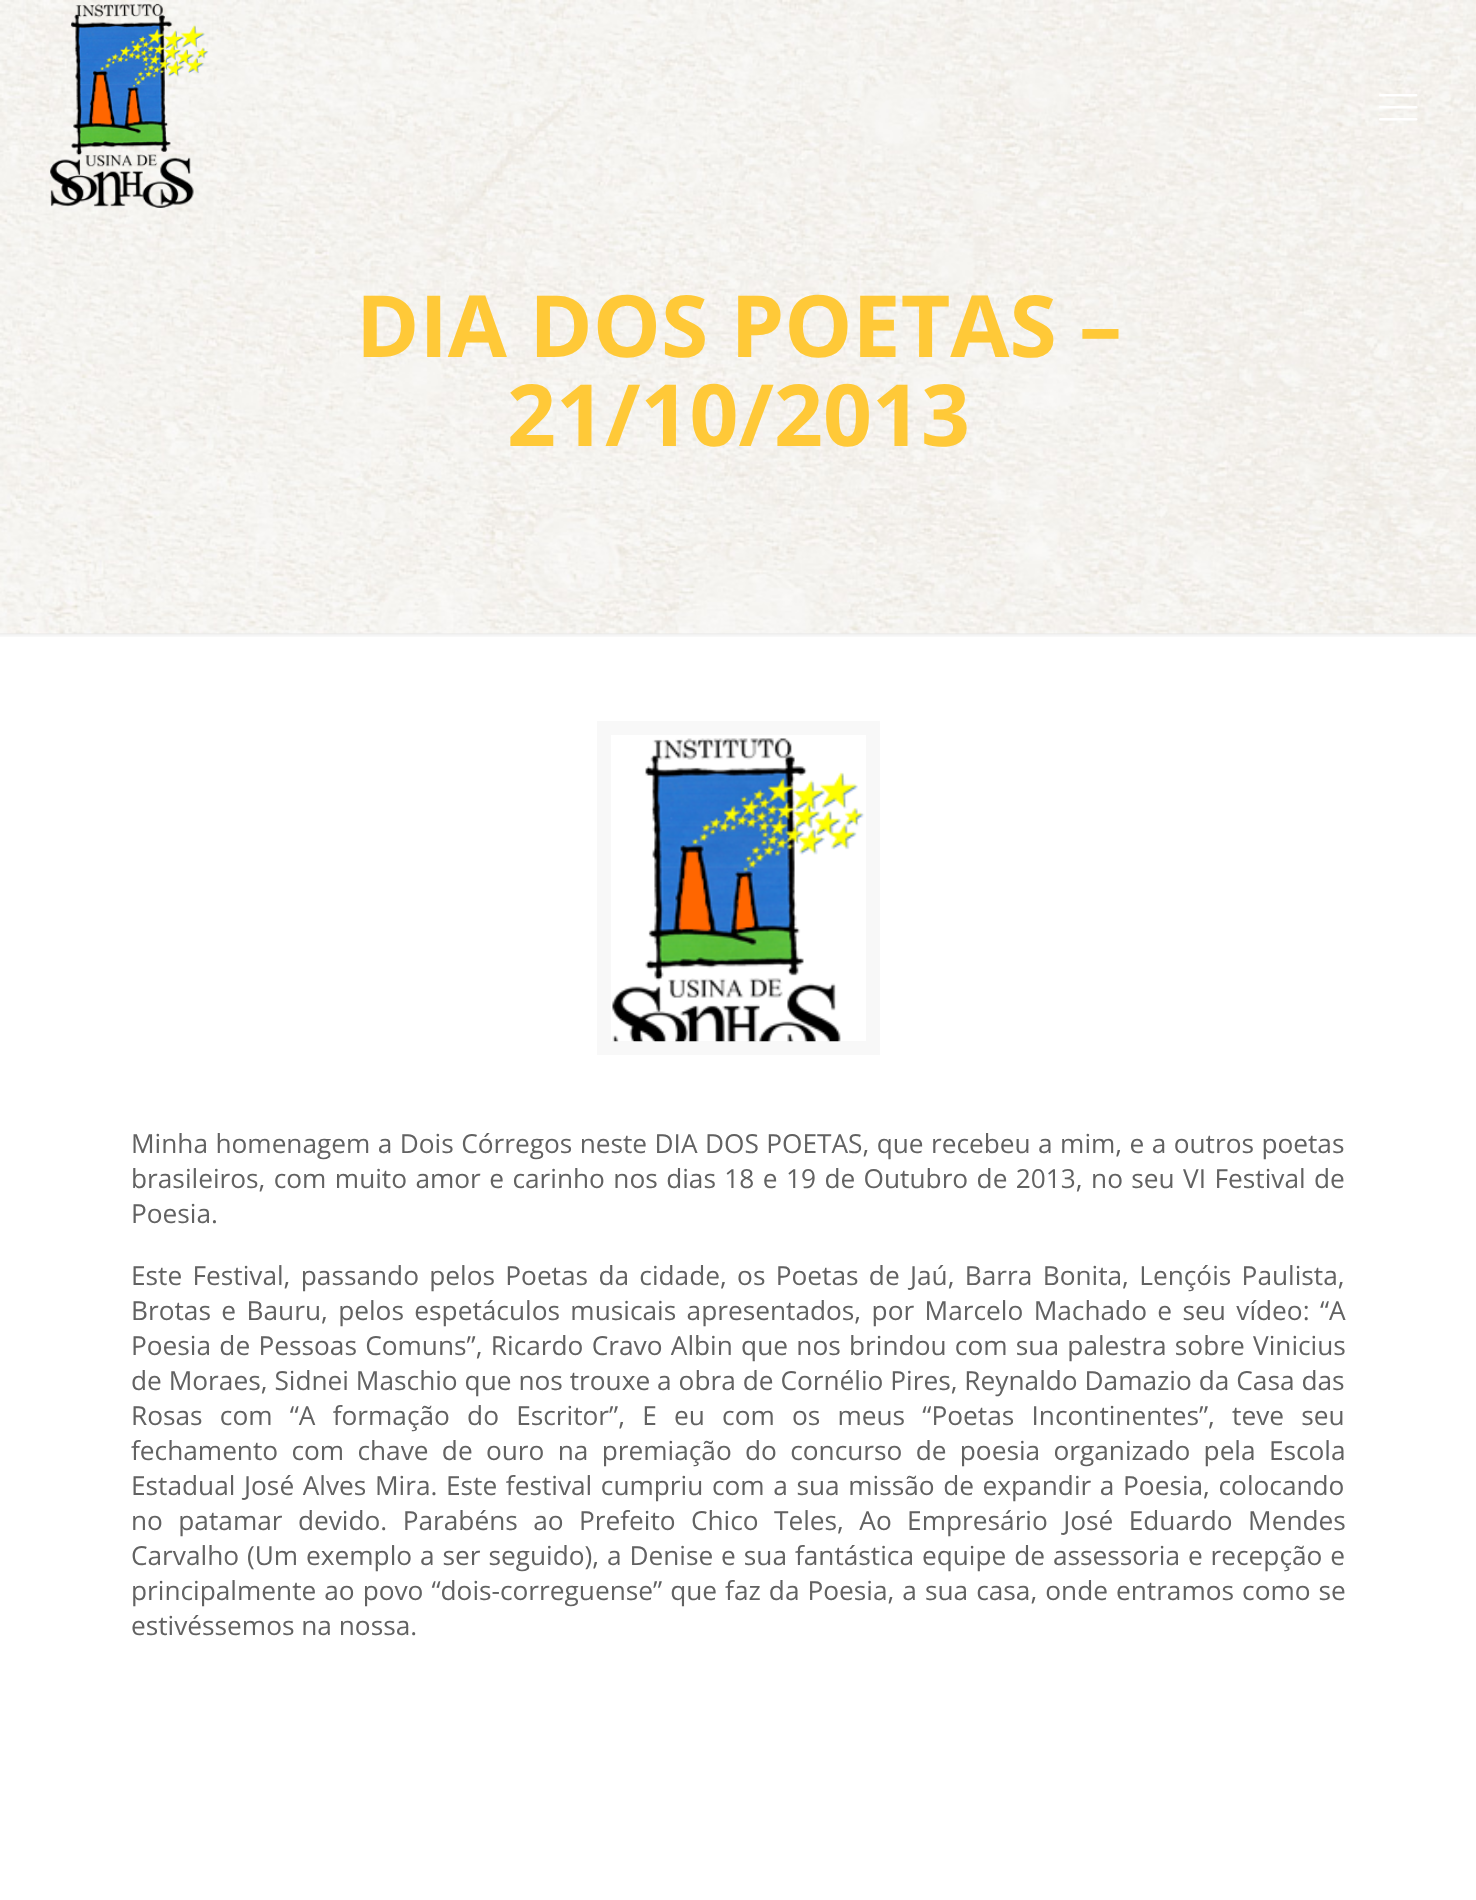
(async () => {
  const canvas = document.querySelector("canvas");
  canvas.width = 1476;
  canvas.height = 1900;
  const ctx = canvas.getContext("2d");
  ctx.miterLimit = 4;
  ctx.fontKerning = "normal";
  async function loadImage(src) {
    const img = new Image();
    img.src = src;
    await img.decode();
    return img;
  }

  ctx.fillStyle = "#ffffff";
  ctx.fillRect(0, 0, 1476, 1900);
  ctx.fillStyle = "#f7f7f7";
  ctx.fillRect(0, 633, 1476, 1);
  ctx.drawImage(await loadImage("img/3.png"), 0, 0, 1476, 634);
  ctx.drawImage(await loadImage("img/1.png"), 50, 3, 159, 205);
  ctx.drawImage(await loadImage("img/2.png"), 1379, 94, 39, 27);
  ctx.drawImage(await loadImage("img/4.png"), 0, 633, 1476, 4);
  ctx.strokeStyle = "#f8f8f8";
  ctx.lineWidth = 14;
  ctx.strokeRect(604, 728, 269, 320);
  ctx.drawImage(await loadImage("img/5.png"), 612, 738, 253, 304);
  ctx.font = "bold 85.75px Open Sans";
  ctx.fillStyle = "#ffc938";
  ctx.fillText("DIA DOS POETAS –", 356, 357);
  ctx.fillText("21/10/2013", 507, 446);
  ctx.wordSpacing = "0.6px";
  ctx.font = "26.25px Open Sans";
  ctx.fillStyle = "#626262";
  ctx.fillText("Minha homenagem a Dois Córregos neste DIA DOS POETAS, que recebeu a mim, e a outros poetas", 131, 1153);
  ctx.wordSpacing = "1.6px";
  ctx.fillText("brasileiros, com muito amor e carinho nos dias 18 e 19 de Outubro de 2013, no seu VI Festival de", 131, 1188);
  ctx.wordSpacing = "0px";
  ctx.fillText("Poesia.", 131, 1223);
  ctx.wordSpacing = "3.5px";
  ctx.fillText("Este Festival, passando pelos Poetas da cidade, os Poetas de Jaú, Barra Bonita, Lençóis Paulista,", 131, 1285);
  ctx.wordSpacing = "3.6px";
  ctx.fillText("Brotas e Bauru, pelos espetáculos musicais apresentados, por Marcelo Machado e seu vídeo: “A", 131, 1320);
  ctx.wordSpacing = "1.5px";
  ctx.fillText("Poesia de Pessoas Comuns”, Ricardo Cravo Albin que nos brindou com sua palestra sobre Vinicius", 131, 1355);
  ctx.wordSpacing = "0.1px";
  ctx.fillText("de Moraes, Sidnei Maschio que nos trouxe a obra de Cornélio Pires, Reynaldo Damazio da Casa das", 131, 1390);
  ctx.wordSpacing = "10.4px";
  ctx.fillText("Rosas com “A formação do Escritor”, E eu com os meus “Poetas Incontinentes”, teve seu", 131, 1425);
  ctx.wordSpacing = "6.5px";
  ctx.fillText("fechamento com chave de ouro na premiação do concurso de poesia organizado pela Escola", 131, 1460);
  ctx.wordSpacing = "1.8px";
  ctx.fillText("Estadual José Alves Mira. Este festival cumpriu com a sua missão de expandir a Poesia, colocando", 131, 1495);
  ctx.wordSpacing = "8.6px";
  ctx.fillText("no patamar devido. Parabéns ao Prefeito Chico Teles, Ao Empresário José Eduardo Mendes", 131, 1530);
  ctx.wordSpacing = "1.1px";
  ctx.fillText("Carvalho (Um exemplo a ser seguido), a Denise e sua fantástica equipe de assessoria e recepção e", 131, 1565);
  ctx.wordSpacing = "1.2px";
  ctx.fillText("principalmente ao povo “dois-correguense” que faz da Poesia, a sua casa, onde entramos como se", 131, 1600);
  ctx.wordSpacing = "0px";
  ctx.fillText("estivéssemos na nossa.", 131, 1635);
})();
